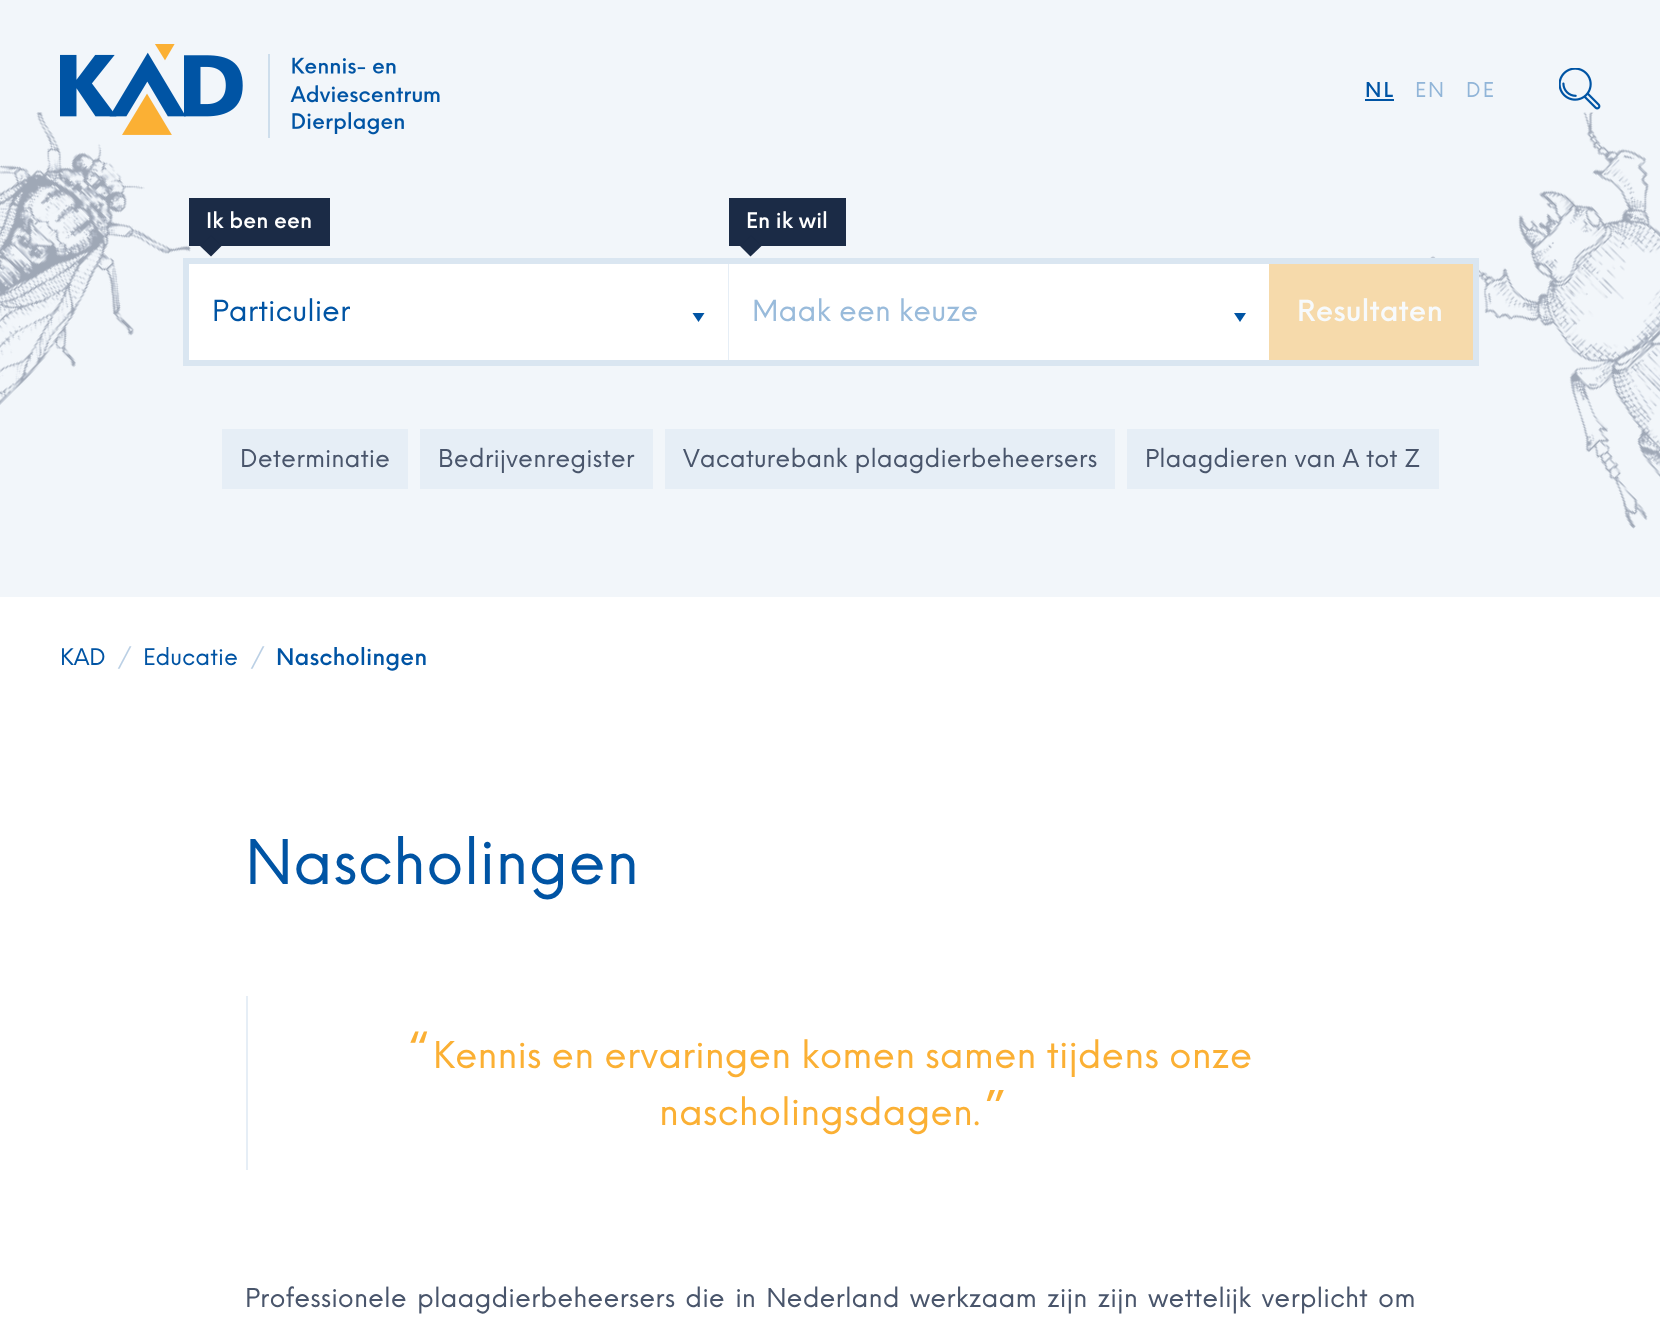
(async () => {
  const canvas = document.querySelector("canvas");
  canvas.width = 1660;
  canvas.height = 1334;
  const ctx = canvas.getContext("2d");
  ctx.miterLimit = 4;
  ctx.fontKerning = "none";
  async function loadImage(src) {
    const img = new Image();
    img.src = src;
    await img.decode();
    return img;
  }
  let path;

  ctx.fillStyle = "#f2f6fa";
  ctx.fillRect(0, 0, 1660, 1334);
  ctx.drawImage(await loadImage("img/3.png"), 0, 112, 191, 293);
  ctx.drawImage(await loadImage("img/1.png"), 60, 44, 380, 94);
  ctx.fillStyle = "#0054a4";
  ctx.fillRect(1365, 99, 29, 2);
  ctx.drawImage(await loadImage("img/2.png"), 1559, 68, 42, 42);
  ctx.drawImage(await loadImage("img/4.png"), 1430, 112, 230, 417);
  ctx.strokeStyle = "#dae6f1";
  ctx.lineWidth = 6;
  ctx.strokeRect(186, 261, 1290, 102);
  for (const [x, y, w, h, color] of [
    [189, 264, 539, 96, "#ffffff"],
    [728, 264, 1, 96, "#e6eef6"],
    [189, 198, 141, 48, "#1b2b46"],
  ]) {
    ctx.fillStyle = color;
    ctx.fillRect(x, y, w, h);
  }
  path = new Path2D("M211 235.5L221.5 246L211 256.5L200 246Z");
  ctx.fill(path);
  ctx.fillStyle = "#0054a4";
  path = new Path2D("M698.5 322L692.5 313H704.5Z");
  ctx.fill(path);
  ctx.fillStyle = "#ffffff";
  ctx.fillRect(729, 264, 540, 96);
  ctx.fillStyle = "#1b2b46";
  ctx.fillRect(729, 198, 117, 48);
  path = new Path2D("M751 235.5L761.5 246L750.5 256.5L740 246Z");
  ctx.fill(path);
  ctx.fillStyle = "#0054a4";
  path = new Path2D("M1240 322L1234 313H1246Z");
  ctx.fill(path);
  for (const [x, y, w, h, color] of [
    [1269, 264, 204, 96, "#f6daab"],
    [222, 429, 186, 60, "#e6eef6"],
    [420, 429, 233, 60, "#e6eef6"],
    [665, 429, 450, 60, "#e6eef6"],
    [1127, 429, 312, 60, "#e6eef6"],
    [0, 597, 1660, 737, "#ffffff"],
    [246, 996, 2, 174, "#e6eef6"],
  ]) {
    ctx.fillStyle = color;
    ctx.fillRect(x, y, w, h);
  }
  ctx.letterSpacing = "2px";
  ctx.font = "500 20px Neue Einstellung";
  ctx.fillStyle = "#0054a4";
  ctx.fillText("NL", 1365, 97);
  ctx.font = "20px Neue Einstellung";
  ctx.fillStyle = "#91b5d8";
  ctx.fillText("EN", 1415, 97);
  ctx.fillText("DE", 1466, 97);
  ctx.letterSpacing = "0px";
  ctx.font = "500 21px Neue Einstellung";
  ctx.fillStyle = "#ffffff";
  ctx.fillText("Ik ben een", 206, 228);
  ctx.font = "28.5px Neue Einstellung";
  ctx.fillStyle = "#0054a4";
  ctx.fillText("Particulier", 212, 321);
  ctx.font = "500 21px Neue Einstellung";
  ctx.fillStyle = "#ffffff";
  ctx.fillText("En ik wil", 746, 228);
  ctx.font = "28.5px Neue Einstellung";
  ctx.fillStyle = "#99bbdb";
  ctx.fillText("Maak een keuze", 752, 321);
  ctx.font = "500 28.5px Neue Einstellung";
  ctx.fillStyle = "#f7fafc";
  ctx.fillText("Resultaten", 1297, 321);
  ctx.font = "24px Neue Einstellung";
  ctx.fillStyle = "#49556b";
  for (const [text, x, y] of [
    ["Determinatie", 240, 467],
    ["Bedrijvenregister", 438, 467],
    ["Vacaturebank plaagdierbeheersers", 683, 467],
    ["Plaagdieren van A tot Z", 1145, 467],
  ]) {
    ctx.fillText(text, x, y);
  }
  ctx.font = "22.5px Neue Einstellung";
  ctx.fillStyle = "#0054a4";
  ctx.fillText("KAD", 60, 665);
  ctx.fillStyle = "#bbd0e5";
  ctx.fillText("/", 118, 665);
  ctx.fillStyle = "#0054a4";
  ctx.fillText("Educatie", 143, 665);
  ctx.fillStyle = "#bbd0e5";
  ctx.fillText("/", 251, 665);
  ctx.font = "500 22.5px Neue Einstellung";
  ctx.fillStyle = "#0054a4";
  ctx.fillText("Nascholingen", 276, 665);
  ctx.font = "60px Neue Einstellung";
  ctx.fillText("Nascholingen", 245, 884);
  ctx.font = "500 43px Neue Einstellung";
  ctx.fillStyle = "#fbb034";
  ctx.fillText("“︎", 410, 1068);
  ctx.font = "36px Neue Einstellung";
  ctx.fillText("Kennis en ervaringen komen samen tijdens onze", 433, 1068);
  ctx.fillText("nascholingsdagen.", 659, 1125);
  ctx.font = "500 43px Neue Einstellung";
  ctx.fillText("”︎", 985, 1125);
  ctx.wordSpacing = "3.1px";
  ctx.font = "25.5px Neue Einstellung";
  ctx.fillStyle = "#49556b";
  ctx.fillText("Professionele plaagdierbeheersers die in Nederland werkzaam zijn zijn wettelijk verplicht om", 245, 1307);
})();
